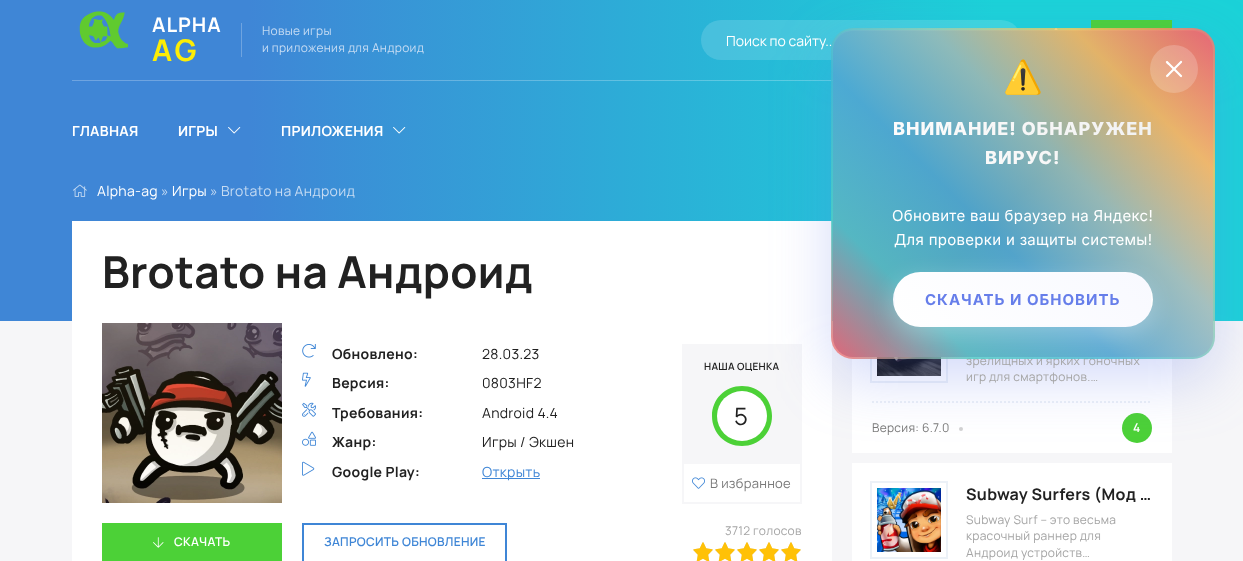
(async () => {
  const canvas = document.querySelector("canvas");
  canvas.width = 1243;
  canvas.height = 561;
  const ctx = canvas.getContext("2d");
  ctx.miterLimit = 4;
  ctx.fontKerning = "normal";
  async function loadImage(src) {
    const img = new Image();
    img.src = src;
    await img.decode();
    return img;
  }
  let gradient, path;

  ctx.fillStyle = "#f6f6f8";
  ctx.fillRect(0, 0, 1243, 561);
  gradient = ctx.createLinearGradient(0, 140, 1243, 140);
  gradient.addColorStop(0.2, "#3f86d6");
  gradient.addColorStop(0.8, "#1bd2d8");
  ctx.fillStyle = gradient;
  ctx.fillRect(0, 0, 1243, 181);
  gradient = ctx.createLinearGradient(0, 140, 1243, 140);
  gradient.addColorStop(0.2, "#6fa4e0");
  gradient.addColorStop(0.8, "#54dde2");
  ctx.fillStyle = gradient;
  ctx.fillRect(72, 80, 761, 1);
  ctx.drawImage(await loadImage("img/1.png"), 79, 11, 49, 38);
  ctx.fillStyle = "#4cd137";
  ctx.fillRect(1091, 20, 81, 10);
  ctx.fillStyle = "#6fa4e0";
  ctx.fillRect(241, 23, 1, 34);
  ctx.drawImage(await loadImage("img/2.png"), 1054, 28, 4, 2);
  ctx.fillStyle = "rgba(255, 255, 255, 0.15)";
  ctx.beginPath();
  ctx.roundRect(701, 20, 320, 40, 20);
  ctx.fill();
  ctx.drawImage(await loadImage("img/3.png"), 228, 127, 13, 7);
  ctx.drawImage(await loadImage("img/4.png"), 393, 127, 13, 7);
  gradient = ctx.createLinearGradient(0, 251, 1243, 251);
  gradient.addColorStop(0.2, "#3f86d6");
  gradient.addColorStop(0.8, "#1bd2d8");
  ctx.fillStyle = gradient;
  ctx.fillRect(0, 181, 1243, 140);
  ctx.drawImage(await loadImage("img/5.png"), 72, 184, 15, 13);
  ctx.fillStyle = "#ffffff";
  ctx.fillRect(72, 221, 760, 340);
  ctx.drawImage(await loadImage("img/6.png"), 102, 323, 180, 180);
  ctx.drawImage(await loadImage("img/7.png"), 302, 344, 14, 14);
  ctx.drawImage(await loadImage("img/8.png"), 302, 372, 9, 15);
  ctx.drawImage(await loadImage("img/9.png"), 302, 402, 14, 15);
  ctx.drawImage(await loadImage("img/10.png"), 302, 431, 14, 15);
  ctx.drawImage(await loadImage("img/11.png"), 302, 461, 13, 15);
  ctx.fillStyle = "#3f86d6";
  ctx.fillRect(482, 478, 58, 1);
  ctx.fillStyle = "#f6f6f8";
  ctx.fillRect(682, 344, 120, 120);
  ctx.fillStyle = "#4cd137";
  path = new Path2D("M742 416V386C759 386 772 399 772 416C772 433 759 446 742 446C725 446 712 433 712 416C712 399 725 386 742 386Z");
  ctx.fill(path);
  ctx.fillStyle = "#ffffff";
  ctx.beginPath();
  ctx.arc(742, 416, 25, 0, Math.PI * 2);
  ctx.fill();
  for (const [x, y, w, h, color] of [
    [800, 464, 2, 40, "#f6f6f8"],
    [682, 502, 120, 2, "#f6f6f8"],
    [682, 464, 2, 40, "#f6f6f8"],
  ]) {
    ctx.fillStyle = color;
    ctx.fillRect(x, y, w, h);
  }
  ctx.drawImage(await loadImage("img/12.png"), 692, 477, 13, 12);
  ctx.drawImage(await loadImage("img/13.png"), 693, 542, 20, 19);
  ctx.drawImage(await loadImage("img/13.png"), 715, 542, 20, 19);
  ctx.drawImage(await loadImage("img/13.png"), 737, 542, 20, 19);
  ctx.drawImage(await loadImage("img/13.png"), 759, 542, 20, 19);
  ctx.drawImage(await loadImage("img/13.png"), 781, 542, 20, 19);
  ctx.drawImage(await loadImage("img/14.png"), 693, 542, 108, 19);
  ctx.fillStyle = "#4cd137";
  ctx.fillRect(102, 523, 180, 38);
  ctx.drawImage(await loadImage("img/15.png"), 153, 537, 11, 11);
  ctx.strokeStyle = "#3f86d6";
  ctx.lineWidth = 2;
  ctx.strokeRect(303, 524, 203, 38);
  ctx.fillStyle = "#ffffff";
  ctx.fillRect(852, 356, 320, 97);
  ctx.strokeStyle = "#ecf1f7";
  ctx.strokeRect(871, 306, 76, 76);
  ctx.drawImage(await loadImage("img/16.png"), 877, 357, 64, 19);
  path = new Path2D("M872 402H1152");
  ctx.setLineDash([2, 2]);
  ctx.stroke(path);
  ctx.fillStyle = "#d2d2d2";
  ctx.beginPath();
  ctx.arc(961, 429, 2, 0, Math.PI * 2);
  ctx.fill();
  ctx.fillStyle = "#4cd137";
  ctx.beginPath();
  ctx.arc(1137, 428, 15, 0, Math.PI * 2);
  ctx.fill();
  ctx.fillStyle = "#ffffff";
  ctx.fillRect(852, 463, 320, 98);
  ctx.setLineDash([]);
  ctx.strokeRect(871, 482, 76, 76);
  ctx.drawImage(await loadImage("img/17.png"), 877, 488, 64, 64);
  ctx.beginPath();
  ctx.roundRect(832.5, 29.5, 381, 328, 20.5);
  ctx.strokeStyle = "rgba(255, 255, 255, 0.1)";
  ctx.lineWidth = 1;
  ctx.stroke();
  ctx.fillStyle = "rgba(102, 126, 234, 0.3)";
  ctx.filter = "blur(30px)";
  ctx.beginPath();
  ctx.roundRect(833, 50, 380, 327, 20);
  ctx.fill();
  ctx.filter = "none";
  gradient = ctx.createLinearGradient(846, 17, 1200, 370);
  gradient.addColorStop(0, "#667eea");
  gradient.addColorStop(0.5, "#764ba2");
  gradient.addColorStop(1, "#f093fb");
  ctx.fillStyle = gradient;
  ctx.beginPath();
  ctx.roundRect(833, 30, 380, 327, 20);
  ctx.fill();
  ctx.fillStyle = "rgba(255, 255, 255, 0.2)";
  path = new Path2D("M853 31H1193C1204 31 1213 40 1213 51V50C1213 39 1204 30 1193 30H853C842 30 833 39 833 50V51C833 40 842 31 853 31Z");
  ctx.fill(path);
  ctx.letterSpacing = "1px";
  ctx.font = "200 20px 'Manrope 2'";
  ctx.fillStyle = "#ffffff";
  ctx.fillText("ALPHA", 152, 32);
  ctx.letterSpacing = "3px";
  ctx.font = "200 30px 'Manrope 2'";
  ctx.fillStyle = "#fded05";
  ctx.fillText("AG", 152, 61);
  ctx.letterSpacing = "0.3px";
  ctx.font = "200 12px Manrope";
  ctx.fillStyle = "#c5dbf3";
  ctx.fillText("Новые игры", 262, 35);
  ctx.fillText("и приложения для Андроид", 262, 52);
  ctx.letterSpacing = "0px";
  ctx.font = "200 14px Manrope";
  ctx.fillStyle = "#ffffff";
  ctx.fillText("Поиск по сайту..", 726, 46);
  ctx.letterSpacing = "0.3px";
  ctx.font = "200 14px 'Manrope 2'";
  for (const [text, x, y] of [
    ["ГЛАВНАЯ", 72, 136],
    ["ИГРЫ", 178, 136],
    ["ПРИЛОЖЕНИЯ", 281, 136],
  ]) {
    ctx.fillText(text, x, y);
  }
  ctx.font = "200 14px Manrope";
  ctx.fillText("Alpha-ag", 97, 196);
  ctx.fillStyle = "#c5dbf3";
  ctx.fillText("»", 161, 196);
  ctx.fillStyle = "#ffffff";
  ctx.fillText("Игры", 172, 196);
  ctx.fillStyle = "#c5dbf3";
  ctx.fillText("» Brotato на Андроид", 210, 196);
  ctx.font = "200 44px 'Manrope 2'";
  ctx.fillStyle = "#212121";
  ctx.fillText("Brotato на Андроид", 102, 288);
  ctx.font = "200 14px 'Manrope 2'";
  ctx.fillText("Обновлено:", 332, 359);
  ctx.font = "200 14px Manrope";
  ctx.fillText("28.03.23", 482, 359);
  ctx.font = "200 14px 'Manrope 2'";
  ctx.fillText("Версия:", 332, 388);
  ctx.font = "200 14px Manrope";
  ctx.fillText("0803HF2", 482, 388);
  ctx.font = "200 14px 'Manrope 2'";
  ctx.fillText("Требования:", 332, 418);
  ctx.font = "200 14px Manrope";
  ctx.fillText("Android 4.4", 482, 418);
  ctx.font = "200 14px 'Manrope 2'";
  ctx.fillText("Жанр:", 332, 447);
  ctx.font = "200 14px Manrope";
  ctx.fillText("Игры / Экшен", 482, 447);
  ctx.font = "200 14px 'Manrope 2'";
  ctx.fillText("Google Play:", 332, 477);
  ctx.font = "200 14px Manrope";
  ctx.fillStyle = "#3f86d6";
  ctx.fillText("Открыть", 482, 477);
  ctx.font = "200 10px 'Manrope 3'";
  ctx.fillStyle = "#212121";
  ctx.fillText("НАША ОЦЕНКА", 704, 370);
  ctx.font = "200 24px Manrope";
  ctx.fillText("5", 734, 425);
  ctx.font = "200 13px Manrope";
  ctx.fillStyle = "#7a7a7a";
  ctx.fillText("В избранное", 710, 488);
  ctx.font = "200 12px Manrope";
  ctx.fillStyle = "#a5a5a5";
  ctx.fillText("3712 голосов", 725, 535);
  ctx.font = "200 12px 'Manrope 3'";
  ctx.fillStyle = "#ffffff";
  ctx.fillText("СКАЧАТЬ", 174, 546);
  ctx.fillStyle = "#3f86d6";
  ctx.fillText("ЗАПРОСИТЬ ОБНОВЛЕНИЕ", 324, 546);
  ctx.font = "200 12px Manrope";
  ctx.fillStyle = "#a5a5a5";
  ctx.fillText("зрелищных и ярких гоночных", 966, 365);
  ctx.fillText("игр для смартфонов.…", 966, 381);
  ctx.fillStyle = "#7a7a7a";
  ctx.fillText("Версия: 6.7.0", 872, 432);
  ctx.font = "200 12px 'Manrope 3'";
  ctx.fillStyle = "#ffffff";
  ctx.fillText("4", 1133, 432);
  ctx.font = "200 16px 'Manrope 2'";
  ctx.fillStyle = "#212121";
  ctx.fillText("Subway Surfers (Мод …", 966, 500);
  ctx.font = "200 12px Manrope";
  ctx.fillStyle = "#a5a5a5";
  for (const [text, x, y] of [
    ["Subway Surf – это весьма", 966, 524],
    ["красочный раннер для", 966, 540],
    ["Андроид устройств…", 966, 557],
  ]) {
    ctx.fillText(text, x, y);
  }
  gradient = ctx.createLinearGradient(844, 372, 1202, 15);
  gradient.addColorStop(0, "rgba(255, 107, 107, 0.8)");
  gradient.addColorStop(0.2, "rgba(78, 205, 196, 0.8)");
  gradient.addColorStop(0.4, "rgba(69, 183, 209, 0.8)");
  gradient.addColorStop(0.6, "rgba(150, 206, 180, 0.8)");
  gradient.addColorStop(0.8, "rgba(254, 202, 87, 0.8)");
  gradient.addColorStop(1, "rgba(255, 107, 107, 0.8)");
  ctx.fillStyle = gradient;
  ctx.beginPath();
  ctx.roundRect(831, 28, 384, 331, 22);
  ctx.fill();
  ctx.font = "32px Noto Color Emoji";
  ctx.fillStyle = "#ffffff";
  ctx.fillText("⚠️", 1003, 88);
  ctx.fillStyle = "rgba(255, 255, 255, 0.2)";
  ctx.beginPath();
  ctx.arc(1174, 69, 24, 0, Math.PI * 2);
  ctx.fill();
  ctx.fillStyle = "#ffffff";
  path = new Path2D("M1167.5 61L1182 75.5C1182.5 76.5 1181.5 77.5 1180.5 77L1168.5 65C1168.5 65 1165 62.5 1166 61.5C1166.5 61 1167 61 1167.5 61Z");
  ctx.fill(path);
  path = new Path2D("M1166 75.5L1180.5 61C1181.5 60.5 1182.5 61.5 1182 62.5L1170 74.5C1170 74.5 1167.5 78 1166.5 77C1166 76.5 1166 76 1166 75.5Z");
  ctx.fill(path);
  ctx.letterSpacing = "1px";
  ctx.font = "800 18px Inter";
  gradient = ctx.createLinearGradient(926, 240, 1120, 47);
  gradient.addColorStop(0, "#ffffff");
  gradient.addColorStop(1, "#f0f0f0");
  ctx.fillStyle = gradient;
  ctx.fillText("ВНИМАНИЕ! ОБНАРУЖЕН", 893, 135);
  ctx.fillText("ВИРУС!", 985, 164);
  ctx.letterSpacing = "0.3px";
  ctx.font = "15px Inter";
  ctx.fillStyle = "#ffffff";
  ctx.fillText("Обновите ваш браузер на Яндекс!", 892, 221);
  ctx.fillText("Для проверки и защиты системы!", 894, 245);
  ctx.fillStyle = "rgba(255, 255, 255, 0.3)";
  ctx.filter = "blur(12.5px)";
  ctx.beginPath();
  ctx.roundRect(893, 280, 260, 55, 27.5);
  ctx.fill();
  ctx.filter = "none";
  ctx.save();
  ctx.beginPath();
  ctx.roundRect(893, 272, 260, 55, 27.5);
  ctx.clip();
  gradient = ctx.createLinearGradient(946, 325, 1100, 172);
  gradient.addColorStop(0, "#ffffff");
  gradient.addColorStop(1, "#f8f9ff");
  ctx.fillStyle = gradient;
  ctx.fillRect(910, 272, 226, 2);
  gradient = ctx.createLinearGradient(690, 376, 844, 223);
  gradient.addColorStop(0, "#ffffff");
  gradient.addColorStop(1, "#f8f9ff");
  ctx.fillStyle = gradient;
  ctx.fillRect(893, 289, 2, 21);
  gradient = ctx.createLinearGradient(946, 376, 1100, 223);
  gradient.addColorStop(0, "#ffffff");
  gradient.addColorStop(1, "#f8f9ff");
  ctx.fillStyle = gradient;
  ctx.fillRect(895, 274, 256, 51);
  gradient = ctx.createLinearGradient(1202, 376, 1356, 223);
  gradient.addColorStop(0, "#ffffff");
  gradient.addColorStop(1, "#f8f9ff");
  ctx.fillStyle = gradient;
  ctx.fillRect(1151, 289, 2, 21);
  gradient = ctx.createLinearGradient(946, 427, 1100, 274);
  gradient.addColorStop(0, "#ffffff");
  gradient.addColorStop(1, "#f8f9ff");
  ctx.fillStyle = gradient;
  ctx.fillRect(910, 325, 226, 2);
  ctx.restore();
  ctx.letterSpacing = "1px";
  ctx.font = "bold 15px Inter";
  ctx.fillStyle = "#667eea";
  ctx.fillText("СКАЧАТЬ И ОБНОВИТЬ", 925, 305);
})();
